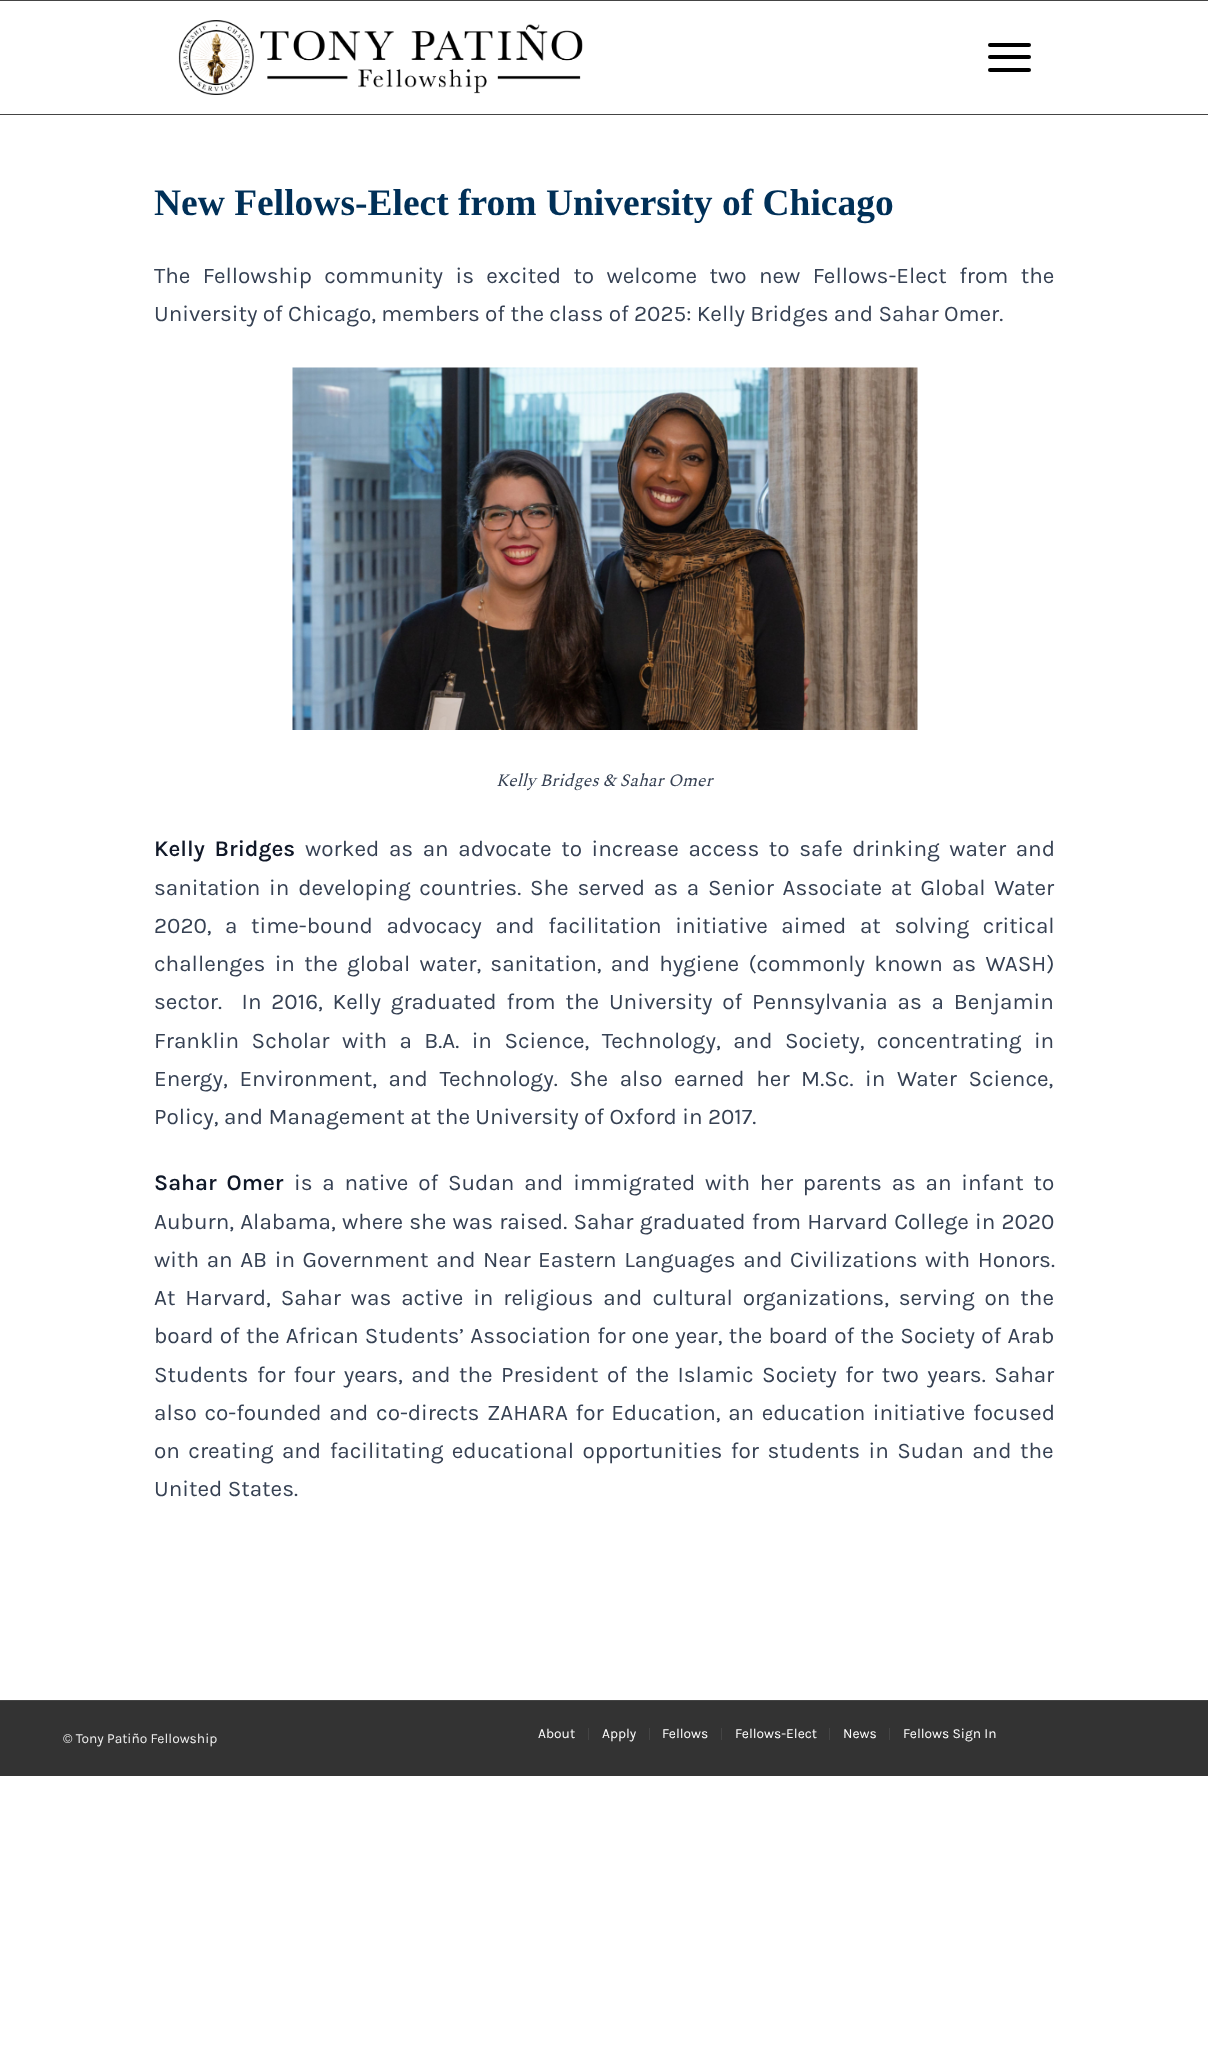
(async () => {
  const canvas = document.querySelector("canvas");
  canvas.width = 1208;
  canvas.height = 2062;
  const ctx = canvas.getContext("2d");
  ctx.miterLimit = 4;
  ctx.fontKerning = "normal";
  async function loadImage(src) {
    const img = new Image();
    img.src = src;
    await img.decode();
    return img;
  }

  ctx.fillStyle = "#ffffff";
  ctx.fillRect(0, 0, 1208, 2062);
  ctx.fillStyle = "#444444";
  ctx.fillRect(0, 0, 1208, 1);
  ctx.fillRect(0, 114, 1208, 1);
  ctx.drawImage(await loadImage("img/1.png"), 178, 20, 405, 75);
  ctx.fillStyle = "#000000";
  ctx.beginPath();
  ctx.roundRect(988, 55, 43, 4, 2);
  ctx.fill();
  ctx.beginPath();
  ctx.roundRect(988, 43, 43, 4, 2);
  ctx.fill();
  ctx.beginPath();
  ctx.roundRect(988, 68, 43, 4, 2);
  ctx.fill();
  ctx.drawImage(await loadImage("img/2.png"), 292, 367, 626, 363);
  for (const [x, y, w, h, color] of [
    [0, 1701, 1208, 75, "#333333"],
    [0, 1700, 1208, 1, "#444444"],
    [588, 1728, 1, 12, "#444444"],
    [649, 1728, 1, 12, "#444444"],
    [721, 1728, 1, 12, "#444444"],
    [829, 1728, 1, 12, "#444444"],
    [889, 1728, 1, 12, "#444444"],
  ]) {
    ctx.fillStyle = color;
    ctx.fillRect(x, y, w, h);
  }
  ctx.font = "bold 37.5px Liberation Serif";
  ctx.fillStyle = "#003058";
  ctx.fillText("New Fellows-Elect from University of Chicago", 154, 215);
  ctx.wordSpacing = "7px";
  ctx.font = "22.5px Karla";
  ctx.fillStyle = "#364153";
  ctx.fillText("The Fellowship community is excited to welcome two new Fellows-Elect from the", 154, 283);
  ctx.wordSpacing = "0px";
  ctx.fillText("University of Chicago, members of the class of 2025: Kelly Bridges and Sahar Omer.", 154, 321);
  ctx.font = "italic 17.5px Spectral";
  ctx.fillText("Kelly Bridges & Sahar Omer", 496, 786);
  ctx.wordSpacing = "4.25px";
  ctx.font = "600 22.5px Karla";
  ctx.fillStyle = "#101828";
  ctx.fillText("Kelly Bridges", 154, 856);
  ctx.font = "22.5px Karla";
  ctx.fillStyle = "#364153";
  ctx.fillText("worked as an advocate to increase access to safe drinking water and", 305, 856);
  ctx.wordSpacing = "3.4px";
  ctx.fillText("sanitation in developing countries. She served as a Senior Associate at Global Water", 154, 895);
  ctx.wordSpacing = "8.25px";
  ctx.fillText("2020, a time-bound advocacy and facilitation initiative aimed at solving critical", 154, 933);
  ctx.wordSpacing = "3.9px";
  ctx.fillText("challenges in the global water, sanitation, and hygiene (commonly known as WASH)", 154, 971);
  ctx.wordSpacing = "4.5px";
  ctx.fillText("sector.  In 2016, Kelly graduated from the University of Pennsylvania as a Benjamin", 154, 1009);
  ctx.wordSpacing = "7.1px";
  ctx.fillText("Franklin Scholar with a B.A. in Science, Technology, and Society, concentrating in", 154, 1048);
  ctx.wordSpacing = "6.25px";
  ctx.fillText("Energy, Environment, and Technology. She also earned her M.Sc. in Water Science,", 154, 1086);
  ctx.wordSpacing = "0px";
  ctx.fillText("Policy, and Management at the University of Oxford in 2017.", 154, 1124);
  ctx.wordSpacing = "4.4px";
  ctx.font = "600 22.5px Karla";
  ctx.fillStyle = "#101828";
  ctx.fillText("Sahar Omer", 154, 1190);
  ctx.font = "22.5px Karla";
  ctx.fillStyle = "#364153";
  ctx.fillText("is a native of Sudan and immigrated with her parents as an infant to", 294, 1190);
  ctx.wordSpacing = "0.9px";
  ctx.fillText("Auburn, Alabama, where she was raised. Sahar graduated from Harvard College in 2020", 154, 1229);
  ctx.wordSpacing = "2.25px";
  ctx.fillText("with an AB in Government and Near Eastern Languages and Civilizations with Honors.", 154, 1267);
  ctx.wordSpacing = "4.6px";
  ctx.fillText("At Harvard, Sahar was active in religious and cultural organizations, serving on the", 154, 1305);
  ctx.wordSpacing = "0.9px";
  ctx.fillText("board of the African Students’ Association for one year, the board of the Society of Arab", 154, 1343);
  ctx.wordSpacing = "3.1px";
  ctx.fillText("Students for four years, and the President of the Islamic Society for two years. Sahar", 154, 1382);
  ctx.wordSpacing = "2.25px";
  ctx.fillText("also co-founded and co-directs ZAHARA for Education, an education initiative focused", 154, 1420);
  ctx.wordSpacing = "3.1px";
  ctx.fillText("on creating and facilitating educational opportunities for students in Sudan and the", 154, 1458);
  ctx.wordSpacing = "0px";
  ctx.fillText("United States.", 154, 1496);
  ctx.font = "13.75px Karla";
  ctx.fillStyle = "#eeeeee";
  ctx.fillText("© Tony Patiño Fellowship", 63, 1743);
  ctx.fillStyle = "#ffffff";
  for (const [text, x, y] of [
    ["About", 538, 1738],
    ["Apply", 602, 1738],
    ["Fellows", 662, 1738],
    ["Fellows-Elect", 735, 1738],
    ["News", 843, 1738],
    ["Fellows Sign In", 903, 1738],
  ]) {
    ctx.fillText(text, x, y);
  }
})();
